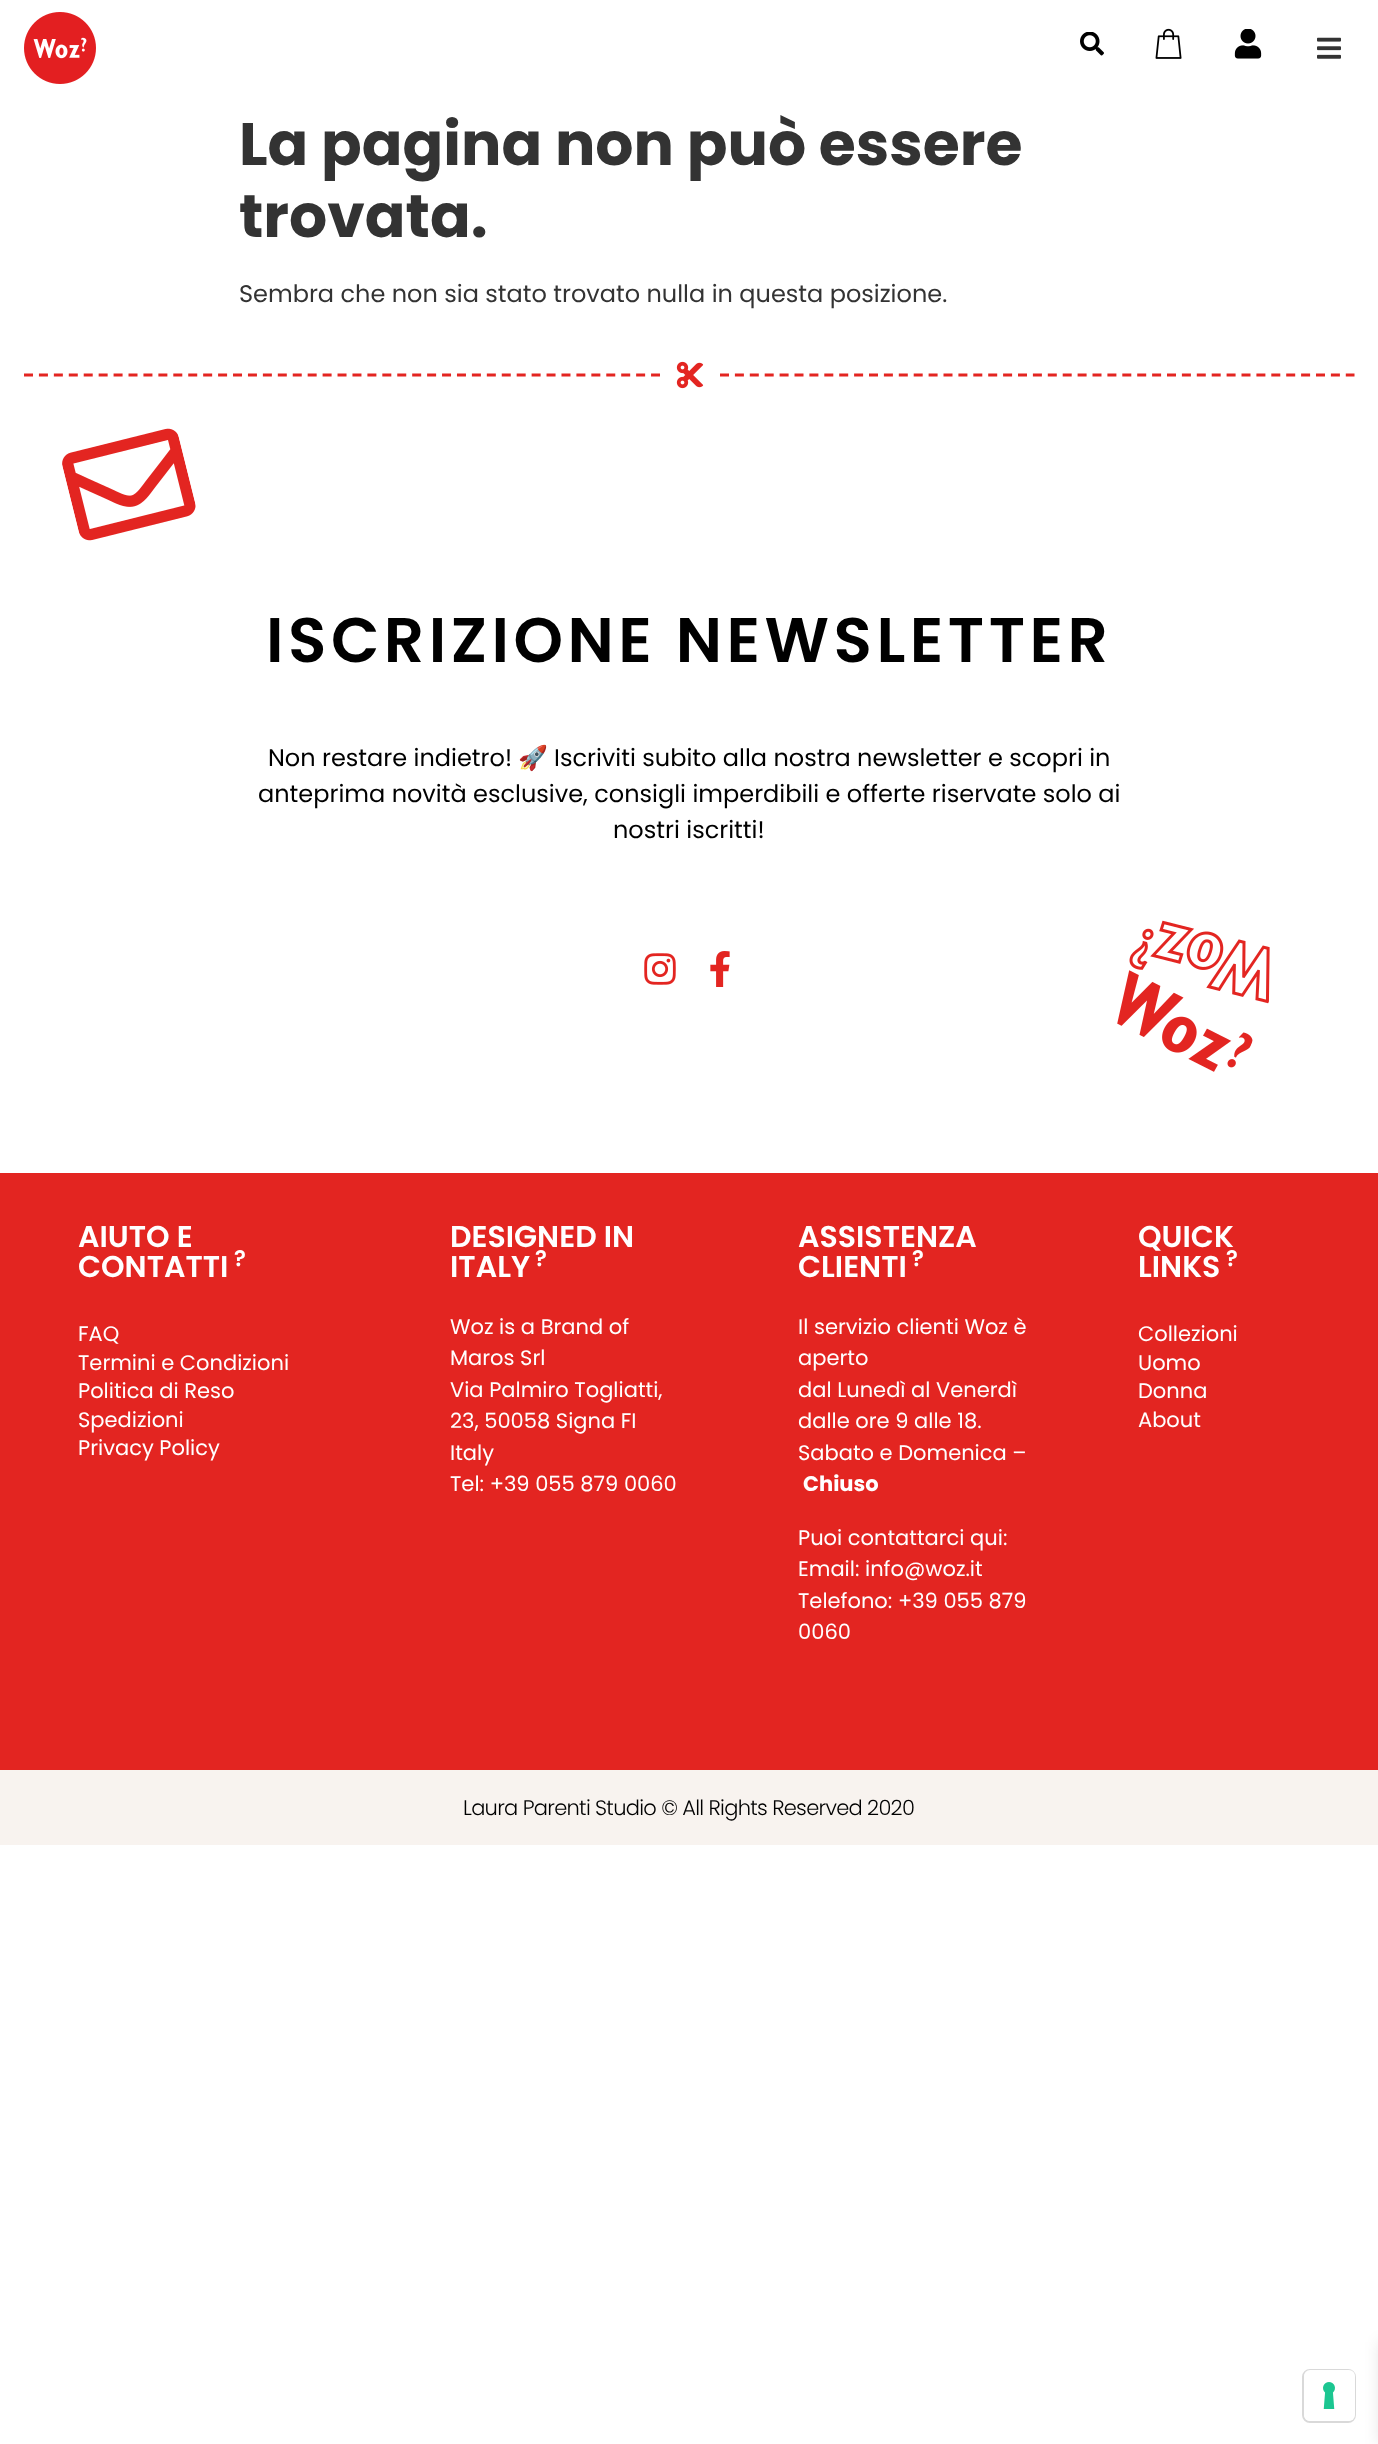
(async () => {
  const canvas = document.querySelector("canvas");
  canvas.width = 1378;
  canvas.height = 2444;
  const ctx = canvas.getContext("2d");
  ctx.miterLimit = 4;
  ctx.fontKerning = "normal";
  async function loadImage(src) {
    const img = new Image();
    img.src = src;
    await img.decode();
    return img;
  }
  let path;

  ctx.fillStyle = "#ffffff";
  ctx.fillRect(0, 0, 1378, 2444);
  ctx.drawImage(await loadImage("img/1.png"), 24, 12, 72, 72);
  ctx.drawImage(await loadImage("img/2.png"), 1080, 32, 24, 24);
  ctx.drawImage(await loadImage("img/3.png"), 1155, 28, 27, 31);
  ctx.drawImage(await loadImage("img/4.png"), 1234, 29, 28, 30);
  ctx.drawImage(await loadImage("img/5.png"), 1317, 37, 24, 22);
  path = new Path2D("M24 375H660");
  ctx.strokeStyle = "#e32521";
  ctx.lineWidth = 3;
  ctx.setLineDash([9, 5.93]);
  ctx.stroke(path);
  ctx.drawImage(await loadImage("img/6.png"), 676, 361, 28, 28);
  path = new Path2D("M720 375H1354.5");
  ctx.setLineDash([9, 5.9]);
  ctx.stroke(path);
  ctx.drawImage(await loadImage("img/7.png"), 62, 428, 134, 113);
  ctx.drawImage(await loadImage("img/8.png"), 644, 953, 32, 32);
  ctx.drawImage(await loadImage("img/9.png"), 710, 951, 20, 36);
  ctx.drawImage(await loadImage("img/10.png"), 1117, 920, 153, 152);
  ctx.fillStyle = "#e32521";
  ctx.fillRect(0, 1173, 1378, 597);
  ctx.fillStyle = "#f8f3ef";
  ctx.fillRect(0, 1770, 1378, 75);
  ctx.fillStyle = "rgba(0, 0, 0, 0.1)";
  ctx.filter = "blur(7.5px)";
  ctx.beginPath();
  ctx.rect(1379, 2342, 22, 102);
  ctx.fill();
  ctx.filter = "none";
  ctx.beginPath();
  ctx.roundRect(1303, 2370, 52, 52, 7);
  ctx.strokeStyle = "#d9d9d9";
  ctx.lineWidth = 2;
  ctx.setLineDash([]);
  ctx.stroke();
  ctx.fillStyle = "#ffffff";
  ctx.beginPath();
  ctx.roundRect(1304, 2370, 51, 51, 6);
  ctx.fill();
  ctx.drawImage(await loadImage("img/11.png"), 1323, 2382, 12, 27);
  ctx.font = "bold 60px Poppins";
  ctx.fillStyle = "#333333";
  ctx.fillText("La pagina non può essere", 239, 165);
  ctx.fillText("trovata.", 239, 237);
  ctx.font = "24px Poppins";
  ctx.fillText("Sembra che non sia stato trovato nulla in questa posizione.", 239, 302);
  ctx.letterSpacing = "4.5px";
  ctx.font = "600 63px Poppins";
  ctx.fillStyle = "#000000";
  ctx.fillText("ISCRIZIONE NEWSLETTER", 266, 662);
  ctx.letterSpacing = "0px";
  ctx.font = "24px Poppins";
  ctx.fillText("Non restare indietro!", 268, 766);
  ctx.font = "24px Noto Color Emoji";
  ctx.fillText("🚀", 518, 766);
  ctx.font = "24px Poppins";
  for (const [text, x, y] of [
    ["Iscriviti subito alla nostra newsletter e scopri in", 554, 766],
    ["anteprima novità esclusive, consigli imperdibili e offerte riservate solo ai", 258, 802],
    ["nostri iscritti!", 613, 838],
  ]) {
    ctx.fillText(text, x, y);
  }
  ctx.font = "600 30px Poppins";
  ctx.fillStyle = "#ffffff";
  ctx.fillText("AIUTO E", 78, 1247);
  ctx.fillText("CONTATTI", 78, 1277);
  ctx.font = "600 22px Poppins";
  ctx.fillText("?", 234, 1266);
  ctx.font = "21px Poppins";
  for (const [text, x, y] of [
    ["FAQ", 78, 1341],
    ["Termini e Condizioni", 78, 1370],
    ["Politica di Reso", 78, 1398],
    ["Spedizioni", 78, 1427],
    ["Privacy Policy", 78, 1455],
  ]) {
    ctx.fillText(text, x, y);
  }
  ctx.font = "600 30px Poppins";
  ctx.fillText("DESIGNED IN", 450, 1247);
  ctx.fillText("ITALY", 450, 1277);
  ctx.font = "600 22px Poppins";
  ctx.fillText("?", 535, 1266);
  ctx.font = "21px Poppins";
  for (const [text, x, y] of [
    ["Woz is a Brand of", 450, 1334],
    ["Maros Srl", 450, 1365],
    ["Via Palmiro Togliatti,", 450, 1397],
    ["23, 50058 Signa FI", 450, 1428],
    ["Italy", 450, 1460],
    ["Tel: +39 055 879 0060", 450, 1491],
  ]) {
    ctx.fillText(text, x, y);
  }
  ctx.font = "600 30px Poppins";
  ctx.fillText("ASSISTENZA", 798, 1247);
  ctx.fillText("CLIENTI", 798, 1277);
  ctx.font = "600 22px Poppins";
  ctx.fillText("?", 912, 1266);
  ctx.font = "21px Poppins";
  for (const [text, x, y] of [
    ["Il servizio clienti Woz è", 798, 1334],
    ["aperto", 798, 1365],
    ["dal Lunedì al Venerdì", 798, 1397],
    ["dalle ore 9 alle 18.", 798, 1428],
    ["Sabato e Domenica –", 798, 1460],
  ]) {
    ctx.fillText(text, x, y);
  }
  ctx.font = "bold 21px Poppins";
  ctx.fillText("Chiuso", 803, 1491);
  ctx.font = "21px Poppins";
  for (const [text, x, y] of [
    ["Puoi contattarci qui:", 798, 1545],
    ["Email: info@woz.it", 798, 1576],
    ["Telefono: +39 055 879", 798, 1608],
    ["0060", 798, 1639],
  ]) {
    ctx.fillText(text, x, y);
  }
  ctx.font = "600 30px Poppins";
  ctx.fillText("QUICK", 1138, 1247);
  ctx.fillText("LINKS", 1138, 1277);
  ctx.font = "600 22px Poppins";
  ctx.fillText("?", 1226, 1266);
  ctx.font = "21px Poppins";
  for (const [text, x, y] of [
    ["Collezioni", 1138, 1341],
    ["Uomo", 1138, 1370],
    ["Donna", 1138, 1398],
    ["About", 1138, 1427],
  ]) {
    ctx.fillText(text, x, y);
  }
  ctx.letterSpacing = "-0.7px";
  ctx.font = "300 21px Poppins";
  ctx.fillStyle = "#000000";
  ctx.fillText("Laura Parenti Studio © All Rights Reserved 2020", 463, 1815);
})();
